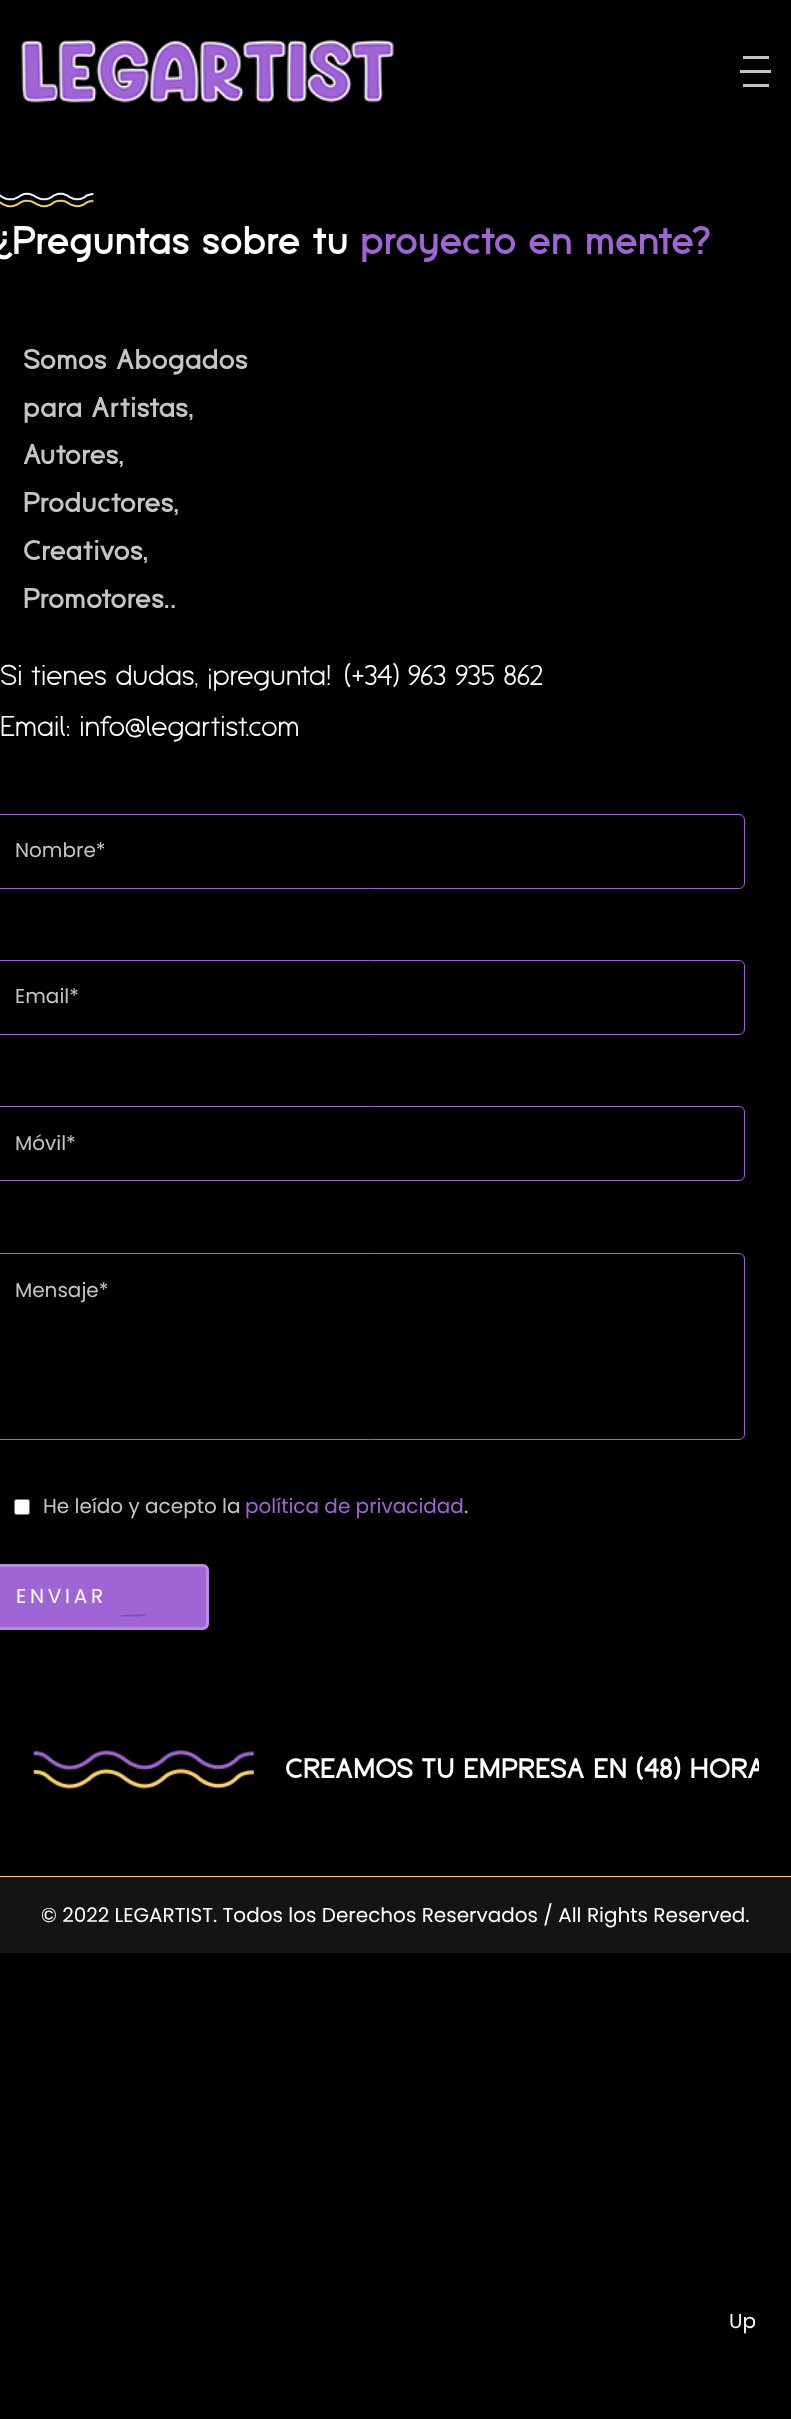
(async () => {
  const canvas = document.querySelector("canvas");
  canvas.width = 791;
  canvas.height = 2419;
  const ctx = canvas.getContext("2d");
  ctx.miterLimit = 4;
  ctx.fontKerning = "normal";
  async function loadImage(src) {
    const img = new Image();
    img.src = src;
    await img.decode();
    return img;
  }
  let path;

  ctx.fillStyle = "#000000";
  ctx.fillRect(0, 0, 791, 2419);
  ctx.drawImage(await loadImage("img/1.png"), 21, 39, 373, 64);
  for (const [x, y, w, h, color] of [
    [743, 56, 26, 3, "#c5c5c5"],
    [740, 70, 31, 3, "#c5c5c5"],
    [743, 84, 26, 3, "#c5c5c5"],
  ]) {
    ctx.fillStyle = color;
    ctx.fillRect(x, y, w, h);
  }
  ctx.drawImage(await loadImage("img/2.png"), 0, 192, 94, 16);
  ctx.beginPath();
  ctx.roundRect(-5.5, 814.5, 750, 74, 5.5);
  ctx.strokeStyle = "#a065d5";
  ctx.stroke();
  ctx.beginPath();
  ctx.roundRect(-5.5, 960.5, 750, 74, 5.5);
  ctx.stroke();
  ctx.beginPath();
  ctx.roundRect(-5.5, 1106.5, 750, 74, 5.5);
  ctx.stroke();
  ctx.beginPath();
  ctx.roundRect(-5.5, 1253.5, 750, 186, 5.5);
  ctx.stroke();
  ctx.fillStyle = "#ffffff";
  ctx.beginPath();
  ctx.roundRect(14.5, 1499.5, 15, 15, 2);
  ctx.fill();
  ctx.strokeStyle = "#767676";
  ctx.stroke();
  ctx.fillStyle = "#a065d5";
  ctx.beginPath();
  ctx.roundRect(-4.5, 1565.5, 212, 63, 4.5);
  ctx.fill();
  ctx.strokeStyle = "#b88ce0";
  ctx.lineWidth = 3;
  ctx.stroke();
  ctx.fillStyle = "#7f52b2";
  path = new Path2D("M146 1615.5C140.5 1616.5 134.5 1616.5 128.5 1616.5H117.5C121 1614.5 141.5 1614 146 1614.5Z");
  ctx.fill(path);
  ctx.drawImage(await loadImage("img/3.png"), 32, 1750, 222, 39);
  ctx.fillStyle = "#141414";
  ctx.fillRect(0, 1877, 791, 76);
  ctx.fillStyle = "#ffd36a";
  ctx.fillRect(0, 1876, 791, 1);
  ctx.font = "bold 40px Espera";
  ctx.fillStyle = "#ffffff";
  ctx.fillText("¿Preguntas sobre tu", -6, 254);
  ctx.fillStyle = "#a065d5";
  ctx.fillText("proyecto en mente?", 360, 254);
  ctx.font = "bold 28.75px Espera";
  ctx.fillStyle = "#c5c5c5";
  for (const [text, x, y] of [
    ["Somos Abogados", 23, 369],
    ["para Artistas,", 23, 417],
    ["Autores,", 23, 464],
    ["Productores,", 23, 512],
    ["Creativos,", 23, 560],
    ["Promotores..", 23, 608],
  ]) {
    ctx.fillText(text, x, y);
  }
  ctx.font = "28.75px Espera";
  ctx.fillStyle = "#ffffff";
  for (const [text, x, y] of [
    ["Si tienes dudas, ¡pregunta!", 0, 685],
    ["(+34) 963 935 862", 344, 685],
    ["Email: info@legartist.com", 0, 736],
  ]) {
    ctx.fillText(text, x, y);
  }
  ctx.font = "20px Poppins";
  ctx.fillStyle = "#c5c5c5";
  for (const [text, x, y] of [
    ["Nombre*", 15, 857],
    ["Email*", 15, 1003],
    ["Móvil*", 15, 1150],
    ["Mensaje*", 15, 1297],
    ["He leído y acepto la", 43, 1513],
  ]) {
    ctx.fillText(text, x, y);
  }
  ctx.fillStyle = "#a065d5";
  ctx.fillText("política de privacidad", 245, 1513);
  ctx.fillStyle = "#c5c5c5";
  ctx.fillText(".", 464, 1513);
  ctx.letterSpacing = "3.75px";
  ctx.fillStyle = "#ffffff";
  ctx.fillText("ENVIAR", 16, 1603);
  ctx.save();
  ctx.beginPath();
  ctx.rect(33, 1738, 726, 63);
  ctx.clip();
  ctx.letterSpacing = "0px";
  ctx.font = "bold 28.25px Espera";
  ctx.fillText("CREAMOS TU EMPRESA EN (48) HORA", 285, 1778);
  ctx.restore();
  ctx.letterSpacing = "0px";
  ctx.fillText("© 2022 LEGARTIST. Todos los Derechos Reservados / All Rights Reserved.", 41, 1922);
  ctx.fillText("Up", 729, 2328);
})();
